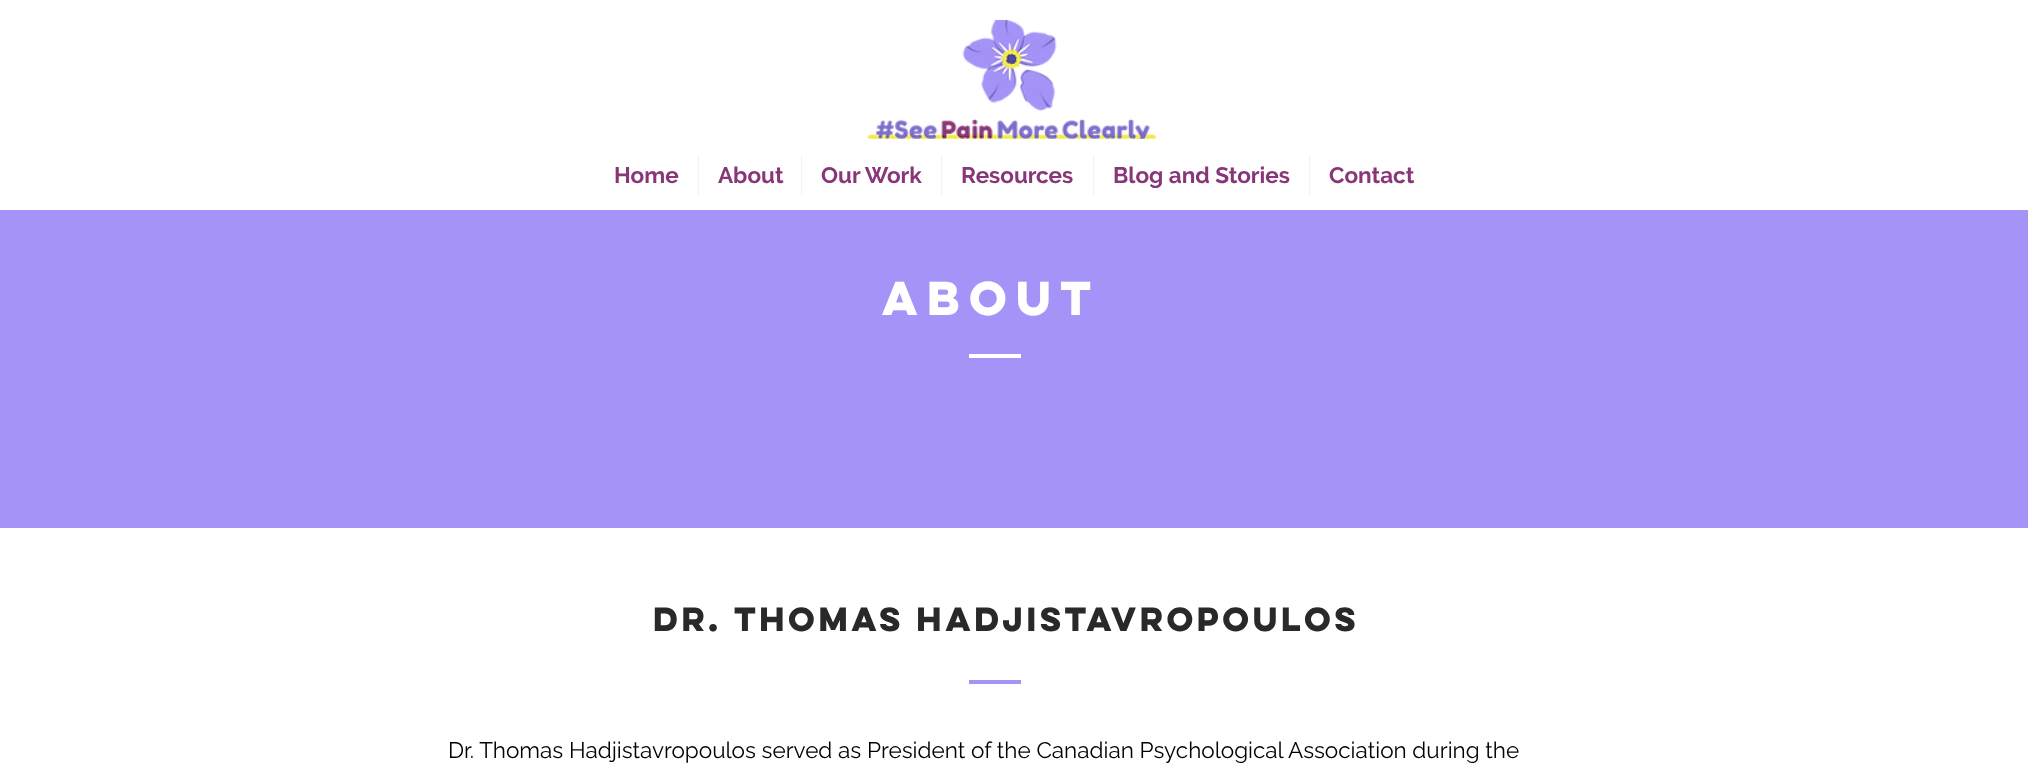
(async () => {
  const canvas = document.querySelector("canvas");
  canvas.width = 2028;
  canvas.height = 774;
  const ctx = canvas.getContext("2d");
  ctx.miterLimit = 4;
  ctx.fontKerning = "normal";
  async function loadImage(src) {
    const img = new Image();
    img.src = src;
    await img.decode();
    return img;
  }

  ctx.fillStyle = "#a593f7";
  ctx.fillRect(0, 0, 2028, 774);
  ctx.fillStyle = "#ffffff";
  ctx.fillRect(0, 0, 2028, 210);
  ctx.drawImage(await loadImage("img/1.png"), 867, 20, 290, 119);
  for (const [x, y, w, h, color] of [
    [698, 155, 1, 40, "#f2f2f2"],
    [801, 155, 1, 40, "#f2f2f2"],
    [941, 155, 1, 40, "#f2f2f2"],
    [1093, 155, 1, 40, "#f2f2f2"],
    [1309, 155, 1, 40, "#f2f2f2"],
    [969, 354, 52, 4, "#ffffff"],
    [0, 528, 2028, 246, "#ffffff"],
    [969, 680, 52, 4, "#a593f7"],
  ]) {
    ctx.fillStyle = color;
    ctx.fillRect(x, y, w, h);
  }
  ctx.font = "bold 22.5px Raleway";
  ctx.fillStyle = "#883677";
  for (const [text, x, y] of [
    ["Home", 614, 183],
    ["About", 718, 183],
    ["Our Work", 821, 183],
    ["Resources", 961, 183],
    ["Blog and Stories", 1113, 183],
    ["Contact", 1329, 183],
  ]) {
    ctx.fillText(text, x, y);
  }
  ctx.font = "bold 42.5px 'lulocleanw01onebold'";
  ctx.fillStyle = "#ffffff";
  ctx.fillText("About", 882, 315);
  ctx.letterSpacing = "-3px";
  ctx.font = "bold 30px 'lulocleanw01onebold'";
  ctx.fillStyle = "#292929";
  ctx.fillText("Dr. Thomas Hadjistavropoulos", 653, 631);
  ctx.letterSpacing = "0px";
  ctx.font = "22.5px Raleway";
  ctx.fillStyle = "#000000";
  ctx.fillText("Dr. Thomas Hadjistavropoulos served as President of the Canadian Psychological Association during the", 448, 758);
})();
